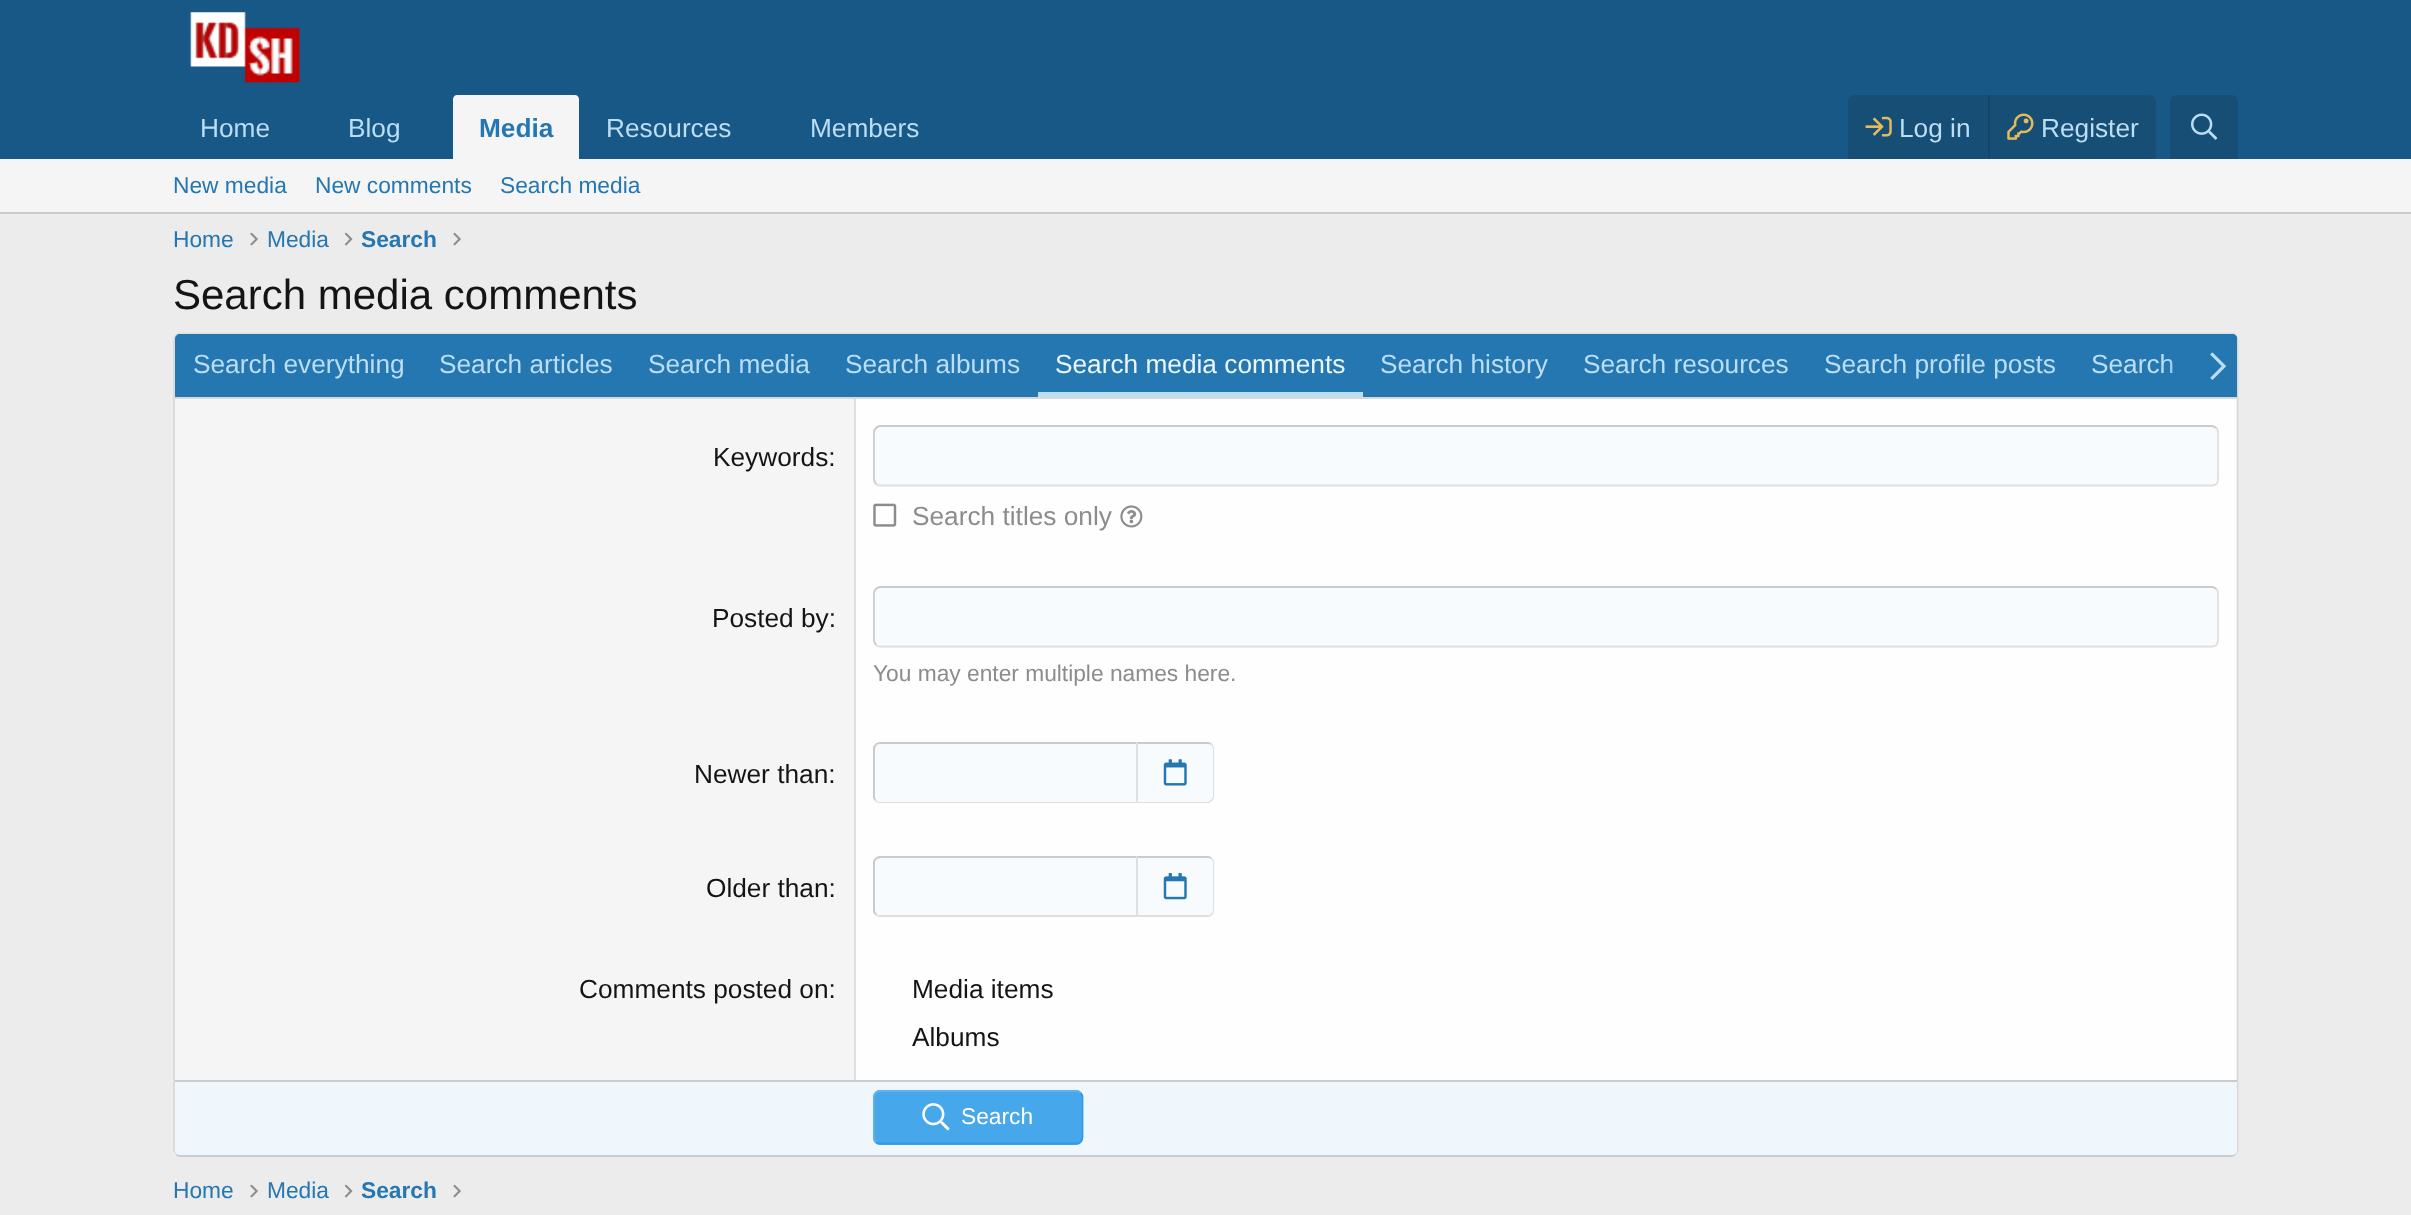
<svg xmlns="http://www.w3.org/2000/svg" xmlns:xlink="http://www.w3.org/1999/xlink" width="2411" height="1215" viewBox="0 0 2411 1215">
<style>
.cls-1{font:26.25px Liberation Sans;fill:#bcdef5}
.cls-2{font:bold 26.25px Liberation Sans;fill:#2577b1}
.cls-3{font:22.75px Liberation Sans;fill:#2577b1}
.cls-4{font:bold 22.75px Liberation Sans;fill:#2577b1}
.cls-5{font:42px Liberation Sans;fill:#141414}
.cls-6{font:26.25px Liberation Sans;fill:#edf6fd}
.cls-7{font:26.25px Liberation Sans;fill:#141414}
.cls-8{font:26.25px Liberation Sans;fill:#8c8c8c}
.cls-9{font:22.75px Liberation Sans;fill:#8c8c8c}
.cls-10{font:22.75px Liberation Sans;fill:#ffffff}
</style>
<defs>
<linearGradient id="g1" gradientUnits="userSpaceOnUse" x1="2167" y1="366" x2="2237" y2="366"><stop offset="0" stop-color="#2577b1" stop-opacity="0"/><stop offset="0.33" stop-color="#2577b1"/></linearGradient>
</defs>
<rect width="100%" height="100%" fill="#ececec"/>
<rect fill="#185886" x="0" y="0" width="2411" height="159"/>
<image xlink:href="image0.png" x="190" y="12" width="110" height="71"/>
<path fill="#f5f5f5" d="M457 95H575C577 95 579 97 579 99V159H453V99C453 97 455 95 457 95Z"/>
<path fill="#174e75" d="M1855 95H2149C2153 95 2156 98 2156 102V159H1848V102C1848 98 1851 95 1855 95Z"/>
<image xlink:href="image1.png" x="1865" y="116" width="27" height="21"/>
<rect fill="#174566" x="1988" y="95" width="2" height="64"/>
<image xlink:href="image2.png" x="2007" y="113" width="27" height="27"/>
<path fill="#174e75" d="M2177 95H2231C2235 95 2238 98 2238 102V159H2170V102C2170 98 2173 95 2177 95Z"/>
<image xlink:href="image3.png" x="2191" y="113" width="27" height="27"/>
<rect fill="#f5f5f5" x="0" y="159" width="2411" height="53"/>
<rect fill="#cbcbcb" x="0" y="212" width="2411" height="2"/>
<image xlink:href="image4.png" x="250" y="232" width="8" height="14"/>
<image xlink:href="image5.png" x="344" y="232" width="9" height="14"/>
<image xlink:href="image4.png" x="453" y="232" width="8" height="14"/>
<rect fill="#fefefe" x="173" y="333" width="2065" height="824" rx="7"/>
<path fill="none" stroke="#dfdfdf" stroke-width="1.8" d="M176 335C177 334 178.5 333.5 180 333.5H2231C2233 333.5 2234.5 334 2235.5 335"/>
<path fill="none" stroke="#d8d8d8" stroke-width="1.8" d="M2235.5 335C2236.5 336.5 2237.5 338 2237.5 339.5V1150C2237.5 1151.5 2236.5 1153 2235.5 1154"/>
<path fill="none" stroke="#cbcbcb" stroke-width="1.8" d="M2235.5 1154C2234.5 1155 2233 1156 2231 1156H180C178.5 1156 177 1155 176 1154"/>
<path fill="none" stroke="#d8d8d8" stroke-width="1.8" d="M176 1154C175 1153 174 1151.5 174 1150V339.5C174 338 175 336.5 176 335"/>
<path fill="#2577b1" d="M180 334H2232C2235 334 2237 336 2237 339V399H175V339C175 336 177 334 180 334Z"/>
<rect fill="#d8d8d8" x="175" y="397" width="2062" height="2"/>
<rect fill="#bcdef5" x="1038" y="392" width="325" height="5"/>
<rect fill="#f5f5f5" x="175" y="399" width="679" height="681"/>
<rect fill="#dfdfdf" x="854" y="399" width="2" height="681"/>
<rect fill="#f7fbfe" x="873" y="425" width="1346" height="62" rx="7"/>
<path fill="none" stroke="#dfdfdf" stroke-width="1.8" d="M2216.5 428C2217.5 429 2218 430.5 2218 432V479.5C2218 481 2217.5 482.5 2216.5 484C2215 485 2213.5 485.5 2212 485.5H880C878.5 485.5 877 485 876 484"/>
<path fill="none" stroke="#cbcbcb" stroke-width="1.8" d="M876 484C875 482.5 874 481 874 479.5V432C874 430.5 875 429 876 428C877 427 878.5 426 880 426H2212C2213.5 426 2215 427 2216.5 428"/>
<image xlink:href="image7.png" x="873" y="503" width="24" height="24"/>
<image xlink:href="image8.png" x="1120" y="505" width="23" height="23"/>
<rect fill="#f7fbfe" x="873" y="586" width="1346" height="62" rx="7"/>
<path fill="none" stroke="#dfdfdf" stroke-width="1.8" d="M2216.5 589C2217.5 590 2218 591.5 2218 593V640.5C2218 642 2217.5 643.5 2216.5 645C2215 646 2213.5 646.5 2212 646.5H880C878.5 646.5 877 646 876 645"/>
<path fill="none" stroke="#cbcbcb" stroke-width="1.8" d="M876 645C875 643.5 874 642 874 640.5V593C874 591.5 875 590 876 589C877 588 878.5 587 880 587H2212C2213.5 587 2215 588 2216.5 589"/>
<path fill="#f7fbfe" d="M880 742H1136V803H880C876 803 873 800 873 796V749C873 745 876 742 880 742Z"/>
<path fill="#cbcbcb" d="M880 742C878 742 876 743 875 744L877 745C877 744 879 744 880 744H1136V742Z"/>
<path fill="#dfdfdf" d="M1136 803H880C878 803 876 802 875 801L876 800C877 801 878 802 880 802H1136Z"/>
<path fill="#cbcbcb" d="M873 747L875 744L877 745C876 746 875 747 875 749V796C875 798 876 799 876 800L875 801L873 798Z"/>
<path fill="#f7fbfe" d="M1136 742H1208C1212 742 1215 745 1215 749V796C1215 800 1212 803 1208 803H1136Z"/>
<path fill="#cbcbcb" d="M1136 742L1138 744H1208C1209 744 1210 744 1211 745L1212 744C1211 743 1210 742 1208 742Z"/>
<path fill="#dfdfdf" d="M1212 744C1213 745 1214 747 1214 749V796C1214 798 1213 800 1212 801L1211 800C1212 799 1213 797 1213 796V749C1213 747 1212 746 1211 745Z"/>
<path fill="#dfdfdf" d="M1212 801L1209 803H1136L1138 801V802H1208L1211 800Z"/>
<path fill="#dfdfdf" d="M1136 742V803L1138 801V744Z"/>
<image xlink:href="image9.png" x="1163" y="759" width="24" height="27"/>
<path fill="#f7fbfe" d="M880 856H1136V917H880C876 917 873 914 873 910V863C873 859 876 856 880 856Z"/>
<path fill="#cbcbcb" d="M880 856H1136V858H880L877 859L875 858C876 857 878 856 880 856Z"/>
<path fill="#dfdfdf" d="M1136 917V915H880C879 915 877 915 877 914L875 915C876 916 878 917 880 917Z"/>
<path fill="#cbcbcb" d="M877 914L875 915L873 912V861L875 858L877 859C876 860 875 861 875 863V910C875 912 876 913 877 914Z"/>
<path fill="#f7fbfe" d="M1136 856H1208C1212 856 1215 859 1215 863V910C1215 914 1212 917 1208 917H1136Z"/>
<path fill="#cbcbcb" d="M1136 856L1138 858H1208C1209 858 1210 858 1211 859L1212 858C1211 857 1210 856 1208 856Z"/>
<path fill="#dfdfdf" d="M1212 858C1213 859 1214 861 1214 863V910C1214 912 1213 914 1212 915L1211 914C1212 913 1213 912 1213 910V863C1213 861 1212 860 1211 859Z"/>
<path fill="#dfdfdf" d="M1136 917H1209L1212 915L1211 914C1210 915 1209 915 1208 915H1138Z"/>
<path fill="#dfdfdf" d="M1138 858L1136 856V917L1138 915Z"/>
<image xlink:href="image10.png" x="1163" y="873" width="24" height="27"/>
<path fill="#edf6fd" fill-opacity="0.9" d="M175 1080H2237V1150C2237 1153 2235 1155 2232 1155H180C177 1155 175 1153 175 1150Z"/>
<rect fill="#cbcbcb" x="175" y="1080" width="2062" height="2"/>
<rect fill="#47a7eb" x="873" y="1090" width="210" height="55" rx="7"/>
<path fill="none" stroke="#309ce8" stroke-width="1.8" d="M1080.5 1093C1081.5 1094 1082.5 1095.5 1082.5 1097V1137.5C1082.5 1139 1081.5 1140.5 1080.5 1142C1079.5 1143 1078 1143.5 1076 1143.5H880C878.5 1143.5 877 1143 876 1142"/>
<path fill="none" stroke="#5eb2ed" stroke-width="1.8" d="M876 1142C875 1140.5 874 1139 874 1137.5V1097C874 1095.5 875 1094 876 1093C877 1092 878.5 1091 880 1091H1076C1078 1091 1079.5 1092 1080.5 1093"/>
<image xlink:href="image11.png" x="922" y="1103" width="28" height="28"/>
<image xlink:href="image4.png" x="250" y="1184" width="8" height="14"/>
<image xlink:href="image5.png" x="344" y="1184" width="9" height="14"/>
<image xlink:href="image4.png" x="453" y="1184" width="8" height="14"/>
<text class="cls-1" x="200" y="137">Home</text>
<text class="cls-1" x="348" y="137">Blog</text>
<text class="cls-2" x="479" y="137">Media</text>
<text class="cls-1" x="606" y="137">Resources</text>
<text class="cls-1" x="810" y="137">Members</text>
<text class="cls-1" x="1899" y="137">Log in</text>
<text class="cls-1" x="2041" y="137">Register</text>
<text class="cls-3" x="173" y="193">New media</text>
<text class="cls-3" x="315" y="193">New comments</text>
<text class="cls-3" x="500" y="193">Search media</text>
<text class="cls-3" x="173" y="247">Home</text>
<text class="cls-3" x="267" y="247">Media</text>
<text class="cls-4" x="361" y="247">Search</text>
<text class="cls-5" x="173" y="309">Search media comments</text>
<text class="cls-1" x="193" y="373">Search everything</text>
<text class="cls-1" x="439" y="373">Search articles</text>
<text class="cls-1" x="648" y="373">Search media</text>
<text class="cls-1" x="845" y="373">Search albums</text>
<text class="cls-6" x="1055" y="373">Search media comments</text>
<text class="cls-1" x="1380" y="373">Search history</text>
<text class="cls-1" x="1583" y="373">Search resources</text>
<text class="cls-1" x="1824" y="373">Search profile posts</text>
<text class="cls-1" x="2091" y="373">Search</text>
<path fill="url(#g1)" d="M2167 334H2232C2235 334 2237 336 2237 339V397H2167Z"/>
<image xlink:href="image6.png" x="2210" y="352" width="16" height="28"/>
<text class="cls-7" x="713" y="466">Keywords:</text>
<text class="cls-8" x="912" y="525">Search titles only</text>
<text class="cls-7" x="712" y="627">Posted by:</text>
<text class="cls-9" x="873" y="681">You may enter multiple names here.</text>
<text class="cls-7" x="694" y="783">Newer than:</text>
<text class="cls-7" x="706" y="897">Older than:</text>
<text class="cls-7" x="579" y="998">Comments posted on:</text>
<text class="cls-7"><tspan x="912" y="998">Media items</tspan><tspan x="912" y="1046">Albums</tspan></text>
<text class="cls-10" x="961" y="1124">Search</text>
<text class="cls-3" x="173" y="1198">Home</text>
<text class="cls-3" x="267" y="1198">Media</text>
<text class="cls-4" x="361" y="1198">Search</text>
</svg>
